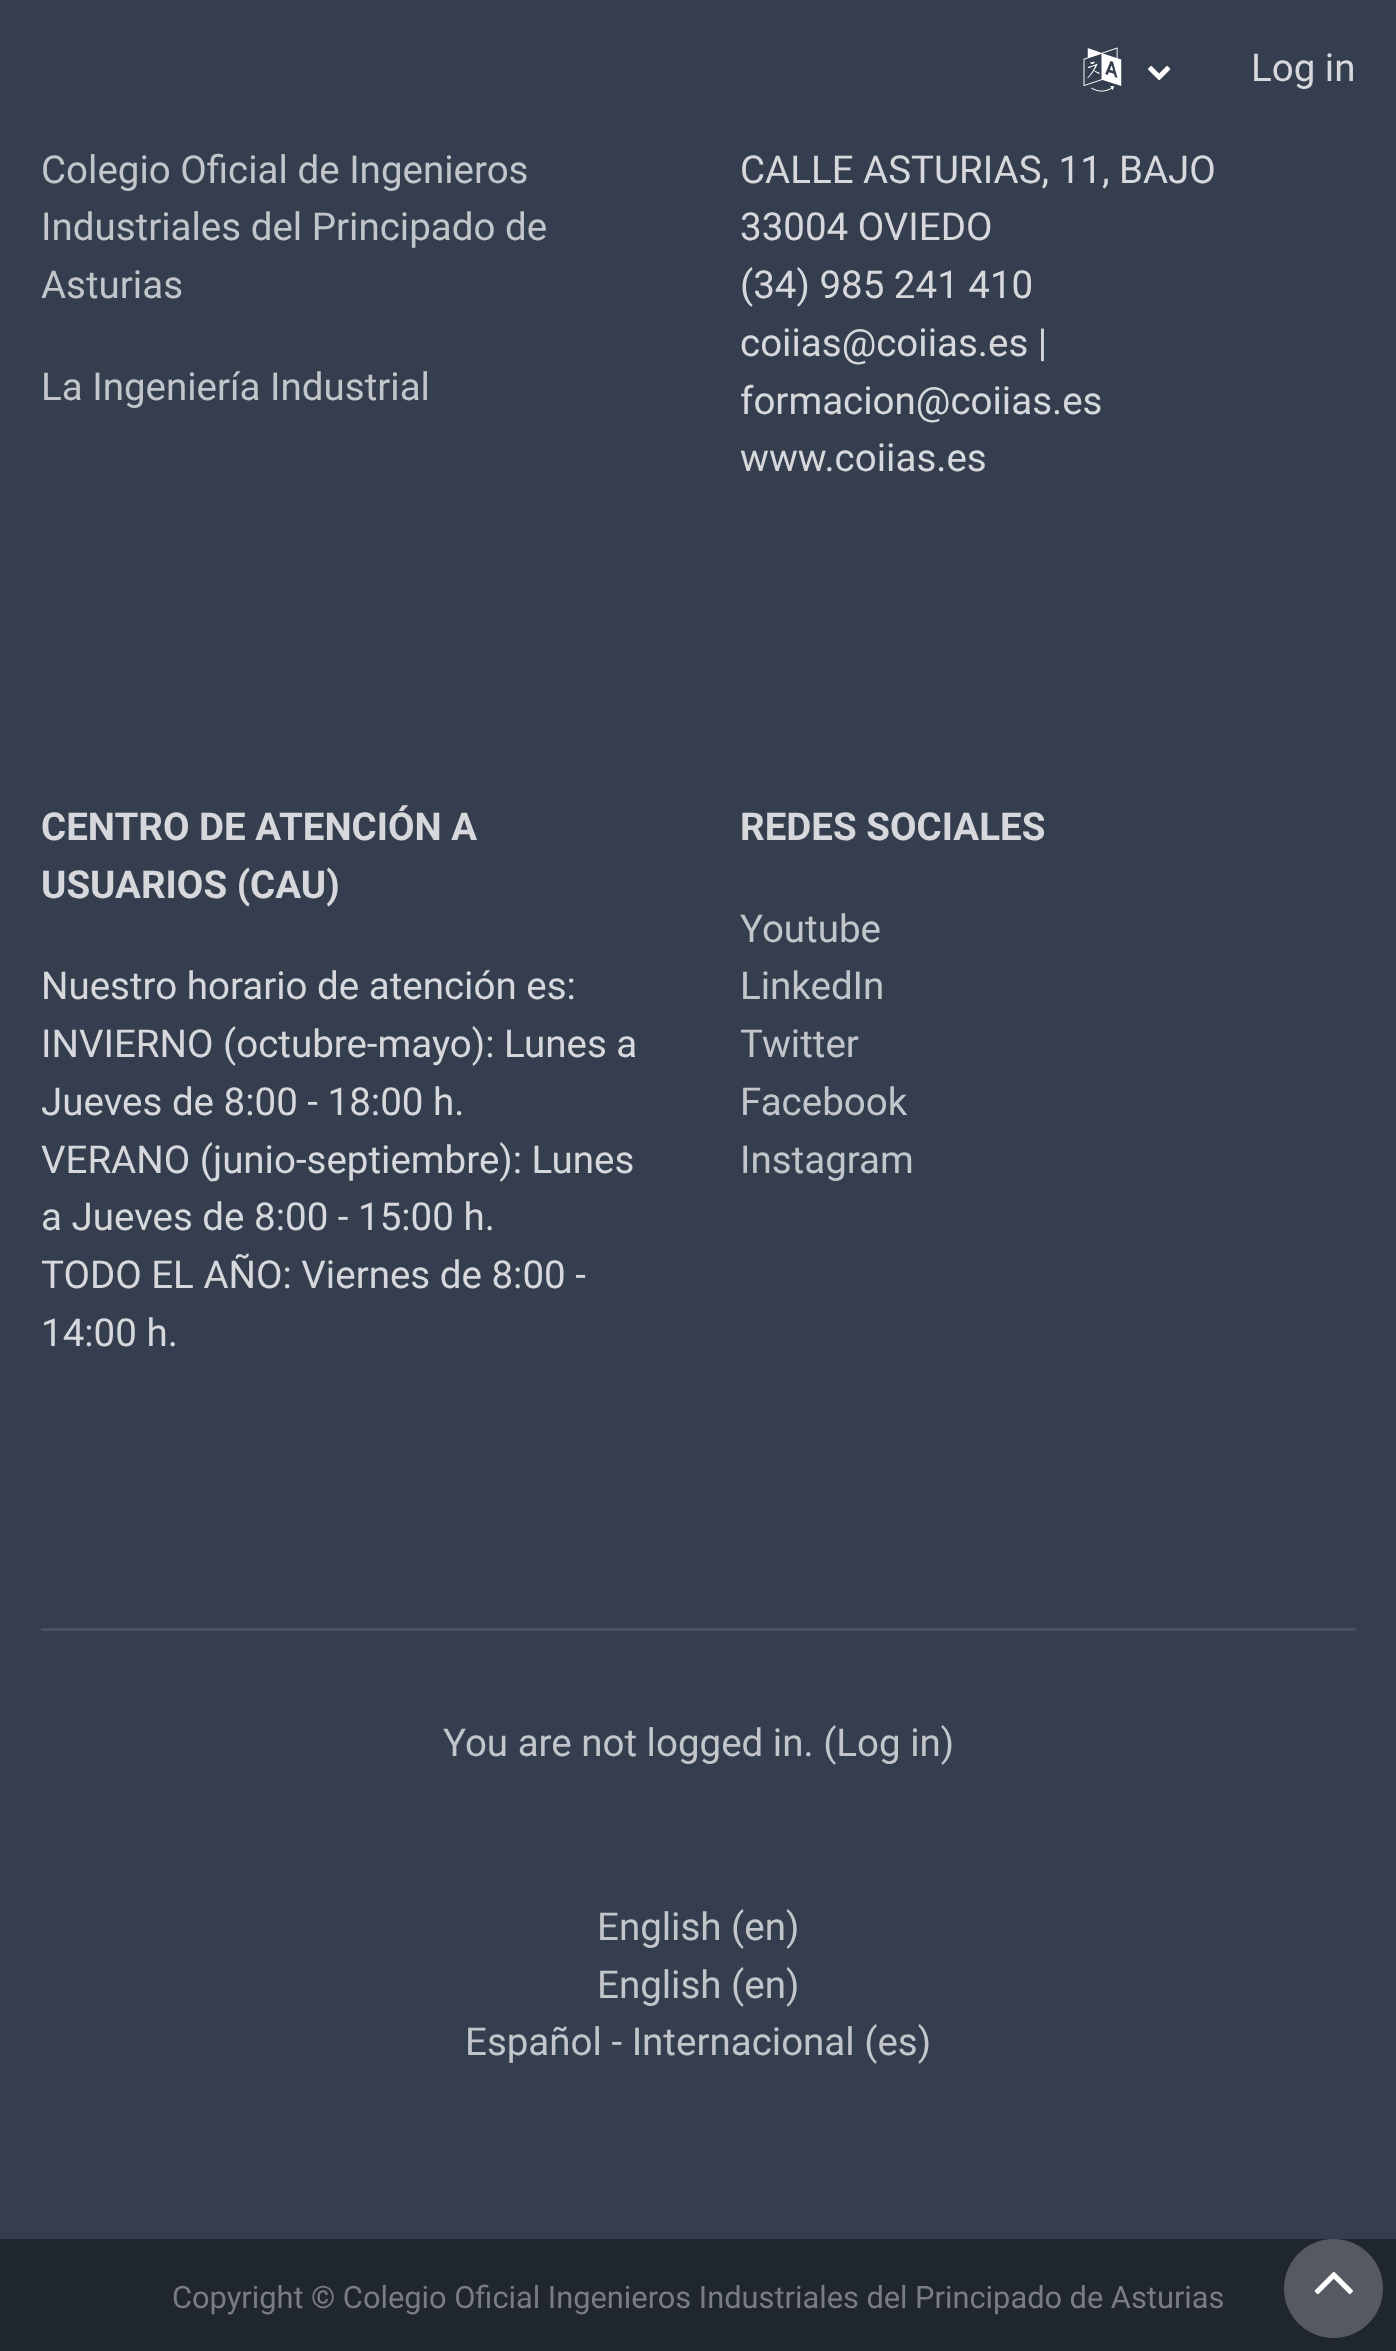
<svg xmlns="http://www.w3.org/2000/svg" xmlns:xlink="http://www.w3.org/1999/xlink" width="1396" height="2351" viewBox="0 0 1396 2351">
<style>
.cls-1{font:38.5px Roboto;fill:#d7d8dc}
.cls-2{font:38.5px Roboto;fill:#c2c5ca}
.cls-3{font:bold 38.5px Roboto;fill:#d7d8dc}
.cls-4{font:30.8px Roboto;fill:#797d83}
</style>
<rect width="100%" height="100%" fill="#353e4e"/>
<image xlink:href="image0.png" x="1083" y="47" width="39" height="45"/>
<image xlink:href="image1.png" x="1148" y="65" width="23" height="16"/>
<rect fill="#495160" x="41" y="1628" width="1315" height="3"/>
<rect fill="#202630" x="0" y="2239" width="1396" height="112"/>
<circle fill="#555961" cx="1333.5" cy="2288.5" r="49.5"/>
<image xlink:href="image2.png" x="1314" y="2271" width="39" height="24"/>
<text class="cls-1" x="1251" y="81">Log in</text>
<text class="cls-2"><tspan x="41" y="183">Colegio Oficial de Ingenieros</tspan><tspan x="41" y="240">Industriales del Principado de</tspan><tspan x="41" y="298">Asturias</tspan></text>
<text class="cls-2" x="41" y="400">La Ingeniería Industrial</text>
<text class="cls-1"><tspan x="740" y="183">CALLE ASTURIAS, 11, BAJO</tspan><tspan x="740" y="240">33004 OVIEDO</tspan><tspan x="740" y="298">(34) 985 241 410</tspan><tspan x="740" y="356">coiias@coiias.es |</tspan><tspan x="740" y="414">formacion@coiias.es</tspan><tspan x="740" y="471">www.coiias.es</tspan></text>
<text class="cls-3"><tspan x="41" y="840">CENTRO DE ATENCIÓN A</tspan><tspan x="41" y="898">USUARIOS (CAU)</tspan></text>
<text class="cls-1"><tspan x="41" y="999">Nuestro horario de atención es:</tspan><tspan x="41" y="1057">INVIERNO (octubre-mayo): Lunes a</tspan><tspan x="41" y="1115">Jueves de 8:00 - 18:00 h.</tspan><tspan x="41" y="1173">VERANO (junio-septiembre): Lunes</tspan><tspan x="41" y="1230">a Jueves de 8:00 - 15:00 h.</tspan><tspan x="41" y="1288">TODO EL AÑO: Viernes de 8:00 -</tspan><tspan x="41" y="1346">14:00 h.</tspan></text>
<text class="cls-3" x="740" y="840">REDES SOCIALES</text>
<text class="cls-2"><tspan x="740" y="942">Youtube</tspan><tspan x="740" y="999">LinkedIn</tspan><tspan x="740" y="1057">Twitter</tspan><tspan x="740" y="1115">Facebook</tspan><tspan x="740" y="1173">Instagram</tspan></text>
<text class="cls-2" x="443" y="1756">You are not logged in. (Log in)</text>
<text class="cls-2"><tspan x="597" y="1940">English (en)</tspan><tspan x="597" y="1998">English (en)</tspan></text>
<text class="cls-2" x="465" y="2055">Español - Internacional (es)</text>
<text class="cls-4" x="172" y="2308" word-spacing="-0.1">Copyright © Colegio Oficial Ingenieros Industriales del Principado de Asturias</text>
</svg>
